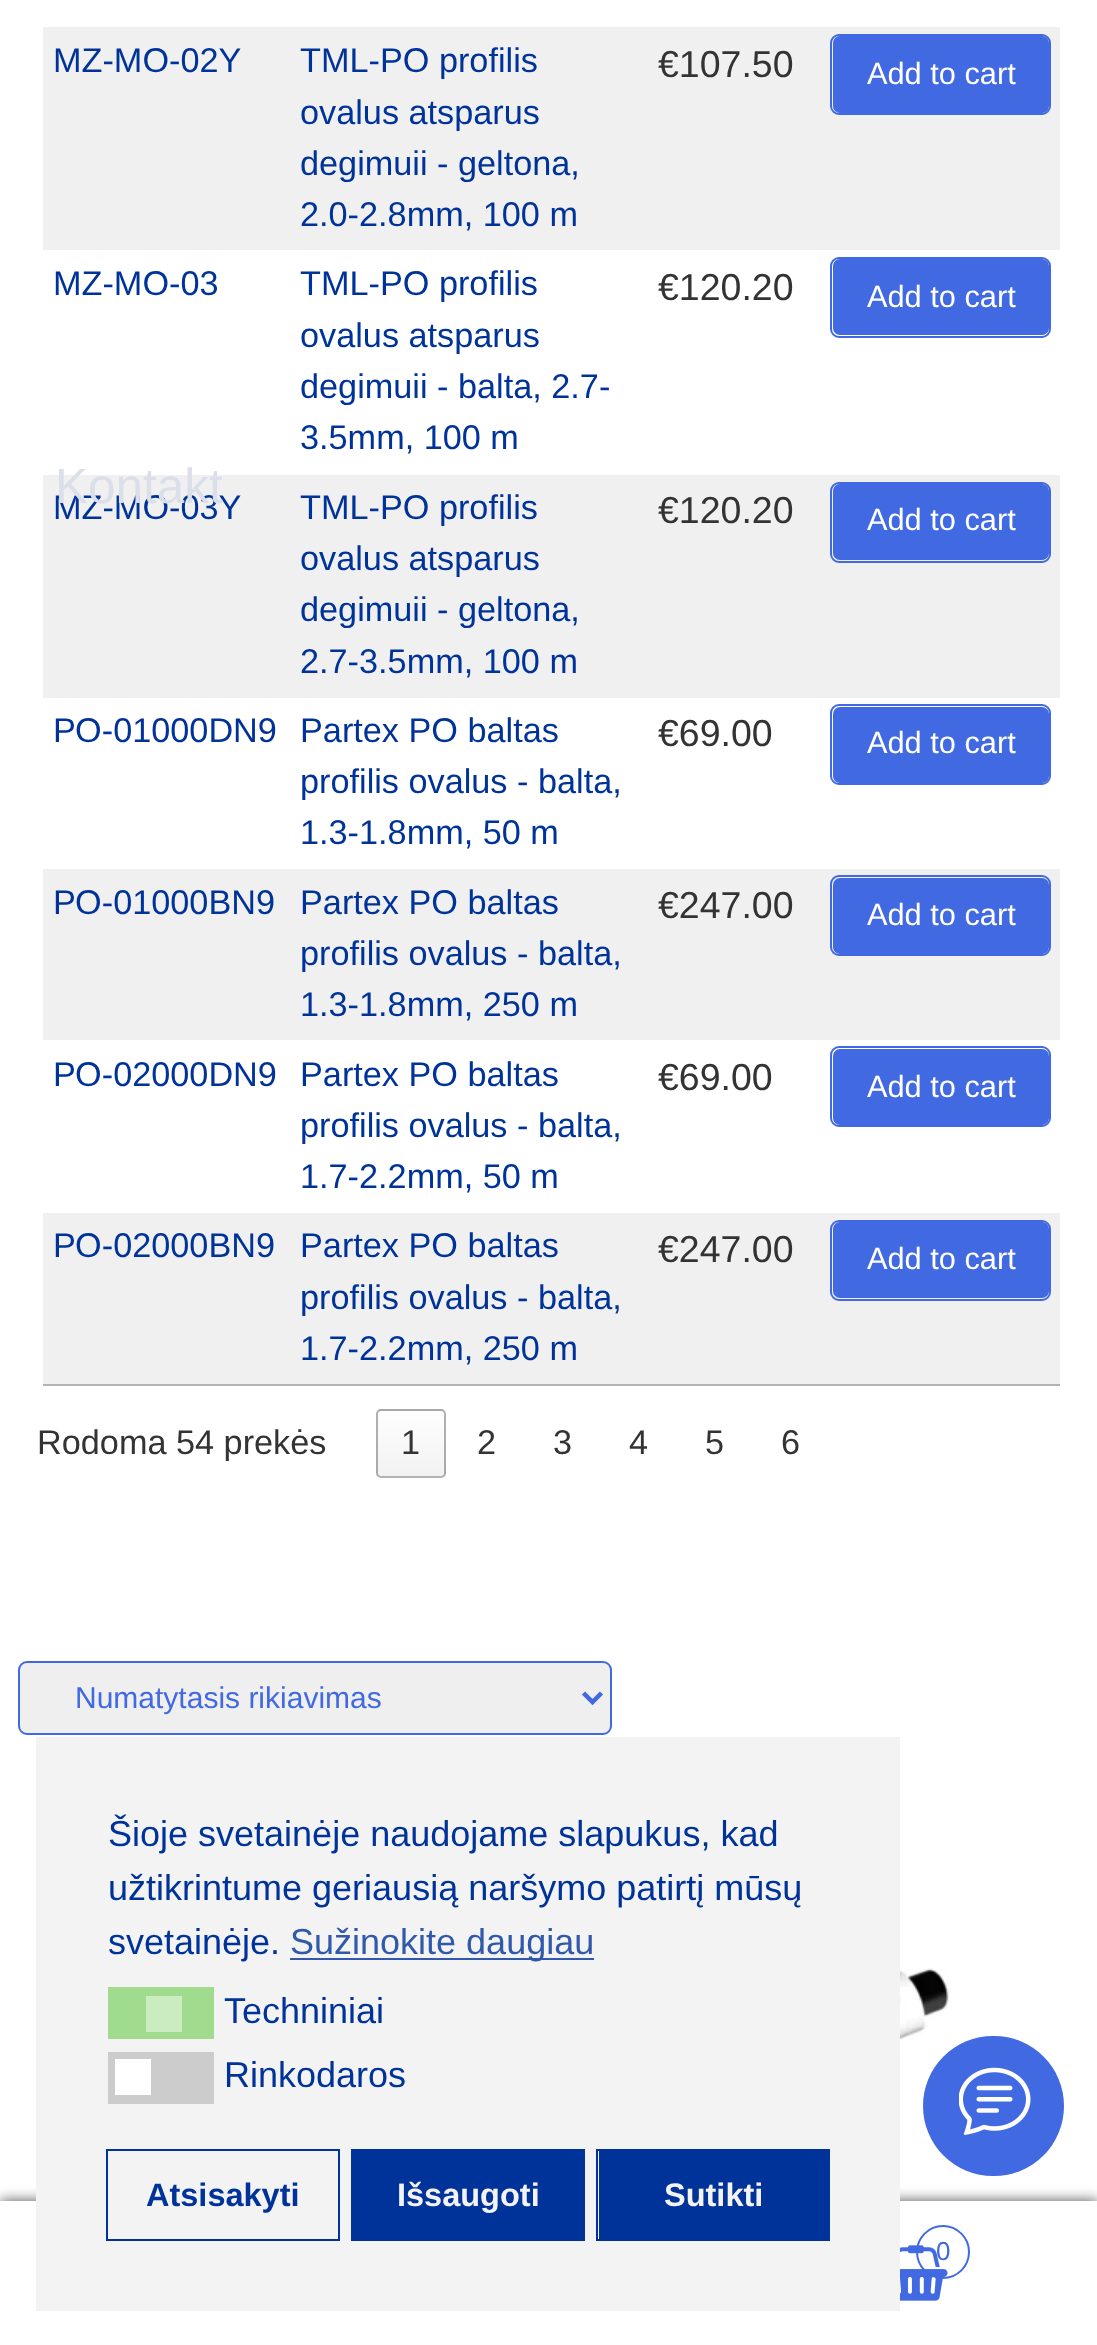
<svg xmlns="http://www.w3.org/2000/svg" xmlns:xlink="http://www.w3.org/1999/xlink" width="1097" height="2345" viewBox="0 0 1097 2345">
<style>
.cls-1{font:34.25px Liberation Sans;fill:#003399}
.cls-2{font:37.5px Liberation Sans;fill:#333333}
.cls-3{font:30.75px Liberation Sans;fill:#ffffff}
.cls-4{font:34.25px Liberation Sans;fill:#333333}
.cls-5{font:30px Liberation Sans;fill:#4169e1}
.cls-6{font:26px Liberation Sans;fill:#4169e1}
.cls-7{font:49.5px Liberation Sans;fill:#dadfe9}
.cls-8{font:36px Liberation Sans;fill:#003399}
.cls-9{font:36px Liberation Sans;fill:#3159ab}
.cls-10{font:bold 32.5px Liberation Sans;fill:#003399}
.cls-11{font:bold 32.5px Liberation Sans;fill:#f3f3f3}
</style>
<defs>
<clipPath id="clip1"><rect x="376" y="1409" width="70" height="69" rx="5"/></clipPath>
<linearGradient id="g1" gradientUnits="userSpaceOnUse" x1="411" y1="1346" x2="411" y2="1411"><stop offset="0" stop-color="#fefefe"/><stop offset="1" stop-color="#f2f2f2"/></linearGradient>
<linearGradient id="g2" gradientUnits="userSpaceOnUse" x1="411" y1="1411" x2="411" y2="1476"><stop offset="0" stop-color="#fefefe"/><stop offset="1" stop-color="#f2f2f2"/></linearGradient>
<radialGradient id="g3" gradientUnits="userSpaceOnUse" cx="0" cy="0" r="1" gradientTransform="matrix(751 0 0 915 551 2458)"><stop offset="0" stop-color="#f6f6f6"/><stop offset="0.33" stop-color="#f9f9f9"/><stop offset="0.67" stop-color="#fefefe"/><stop offset="1" stop-color="#ffffff"/></radialGradient>
</defs>
<rect width="100%" height="100%" fill="#ffffff"/>
<rect fill="#b3b3b3" x="43" y="1384" width="1017" height="2"/>
<rect fill="#f0f0f0" x="43" y="27" width="1017" height="223"/>
<rect fill="#4169e1" x="833" y="36" width="216" height="77" rx="7"/>
<rect fill="none" stroke="#4169e1" stroke-width="2" x="831" y="35" width="219" height="79" rx="8"/>
<rect fill="#4169e1" x="833" y="259" width="216" height="76" rx="7"/>
<rect fill="none" stroke="#4169e1" stroke-width="2" x="831" y="258" width="219" height="79" rx="8"/>
<rect fill="#f0f0f0" x="43" y="475" width="1017" height="223"/>
<rect fill="#4169e1" x="833" y="484" width="216" height="76" rx="7"/>
<rect fill="none" stroke="#4169e1" stroke-width="2" x="831" y="483" width="219" height="79" rx="8"/>
<rect fill="#4169e1" x="833" y="707" width="216" height="76" rx="7"/>
<rect fill="none" stroke="#4169e1" stroke-width="2" x="831" y="705" width="219" height="79" rx="8"/>
<rect fill="#f0f0f0" x="43" y="869" width="1017" height="171"/>
<rect fill="#4169e1" x="833" y="878" width="216" height="76" rx="7"/>
<rect fill="none" stroke="#4169e1" stroke-width="2" x="831" y="876" width="219" height="79" rx="8"/>
<rect fill="#4169e1" x="833" y="1049" width="216" height="76" rx="7"/>
<rect fill="none" stroke="#4169e1" stroke-width="2" x="831" y="1047" width="219" height="79" rx="8"/>
<rect fill="#f0f0f0" x="43" y="1213" width="1017" height="171"/>
<rect fill="#4169e1" x="833" y="1222" width="216" height="76" rx="7"/>
<rect fill="none" stroke="#4169e1" stroke-width="2" x="831" y="1221" width="219" height="79" rx="8"/>
<g clip-path="url(#clip1)">
<rect fill="url(#g1)" x="376" y="1409" width="70" height="2"/>
<rect fill="url(#g2)" x="376" y="1411" width="70" height="65"/>
</g>
<rect fill="none" stroke="#000000" stroke-opacity="0.3" stroke-width="2" x="377" y="1410" width="68" height="67" rx="4"/>
<rect fill="#efefef" x="20" y="1663" width="590" height="70" rx="7"/>
<path fill="none" stroke="#4169e1" stroke-width="4.5" d="M583.5 1693L592.5 1702L601.5 1693"/>
<rect fill="none" stroke="#4169e1" stroke-width="2" x="19" y="1662" width="592" height="72" rx="8"/>
<rect fill="url(#g3)" x="179" y="1939" width="744" height="262"/>
<rect fill="#ffffff" x="23" y="1814" width="506" height="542" rx="11"/>
<rect fill="#ffffff" x="545" y="1814" width="504" height="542" rx="11"/>
<image xlink:href="image0.png" x="900" y="1968" width="49" height="144"/>
<rect fill="#000000" fill-opacity="0.7" filter="blur(7px)" x="0" y="2201" width="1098" height="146"/>
<rect fill="#ffffff" x="0" y="2201" width="1097" height="144"/>
<image xlink:href="image1.png" x="900" y="2245" width="48" height="56"/>
<circle fill="none" stroke="#4169e1" stroke-width="2" cx="943" cy="2252" r="26"/>
<rect fill="#f3f3f3" x="36" y="1737" width="864" height="574"/>
<rect fill="#3159ab" x="290" y="1958" width="304" height="2"/>
<rect fill="#a0db8e" x="108" y="1987" width="106" height="52"/>
<rect fill="#cbebc1" x="146" y="1996" width="36" height="36"/>
<rect fill="#cccccc" x="108" y="2052" width="106" height="52"/>
<rect fill="#ffffff" x="115" y="2059" width="36" height="36"/>
<rect fill="none" stroke="#003399" stroke-width="2" x="107" y="2150" width="232" height="90"/>
<rect fill="#003399" x="353" y="2151" width="230" height="88"/>
<rect fill="none" stroke="#003399" stroke-width="2" x="352" y="2150" width="232" height="90"/>
<rect fill="#003399" x="599" y="2151" width="229" height="88"/>
<rect fill="none" stroke="#003399" stroke-width="2" x="597" y="2150" width="232" height="90"/>
<rect fill="#4169e1" x="923" y="2036" width="141" height="140" rx="70"/>
<image xlink:href="image2.png" x="959" y="2067" width="72" height="68"/>
<text class="cls-1" x="53" y="72">MZ-MO-02Y</text>
<text class="cls-1"><tspan x="300" y="72">TML-PO profilis</tspan><tspan x="300" y="124">ovalus atsparus</tspan><tspan x="300" y="175">degimuii - geltona,</tspan><tspan x="300" y="226">2.0-2.8mm, 100 m</tspan></text>
<text class="cls-2" x="658" y="77">€107.50</text>
<text class="cls-3" x="867" y="84">Add to cart</text>
<text class="cls-1" x="53" y="295">MZ-MO-03</text>
<text class="cls-1"><tspan x="300" y="295">TML-PO profilis</tspan><tspan x="300" y="347">ovalus atsparus</tspan><tspan x="300" y="398">degimuii - balta, 2.7-</tspan><tspan x="300" y="449">3.5mm, 100 m</tspan></text>
<text class="cls-2" x="658" y="300">€120.20</text>
<text class="cls-3" x="867" y="307">Add to cart</text>
<text class="cls-1" x="53" y="519">MZ-MO-03Y</text>
<text class="cls-1"><tspan x="300" y="519">TML-PO profilis</tspan><tspan x="300" y="570">ovalus atsparus</tspan><tspan x="300" y="621">degimuii - geltona,</tspan><tspan x="300" y="673">2.7-3.5mm, 100 m</tspan></text>
<text class="cls-2" x="658" y="523">€120.20</text>
<text class="cls-3" x="867" y="530">Add to cart</text>
<text class="cls-1" x="53" y="742">РО-01000DN9</text>
<text class="cls-1"><tspan x="300" y="742">Partex PO baltas</tspan><tspan x="300" y="793">profilis ovalus - balta,</tspan><tspan x="300" y="844">1.3-1.8mm, 50 m</tspan></text>
<text class="cls-2" x="658" y="746">€69.00</text>
<text class="cls-3" x="867" y="753">Add to cart</text>
<text class="cls-1" x="53" y="914">РО-01000BN9</text>
<text class="cls-1"><tspan x="300" y="914">Partex PO baltas</tspan><tspan x="300" y="965">profilis ovalus - balta,</tspan><tspan x="300" y="1016">1.3-1.8mm, 250 m</tspan></text>
<text class="cls-2" x="658" y="918">€247.00</text>
<text class="cls-3" x="867" y="925">Add to cart</text>
<text class="cls-1" x="53" y="1086">РО-02000DN9</text>
<text class="cls-1"><tspan x="300" y="1086">Partex PO baltas</tspan><tspan x="300" y="1137">profilis ovalus - balta,</tspan><tspan x="300" y="1188">1.7-2.2mm, 50 m</tspan></text>
<text class="cls-2" x="658" y="1090">€69.00</text>
<text class="cls-3" x="867" y="1097">Add to cart</text>
<text class="cls-1" x="53" y="1257">РО-02000BN9</text>
<text class="cls-1"><tspan x="300" y="1257">Partex PO baltas</tspan><tspan x="300" y="1309">profilis ovalus - balta,</tspan><tspan x="300" y="1360">1.7-2.2mm, 250 m</tspan></text>
<text class="cls-2" x="658" y="1262">€247.00</text>
<text class="cls-3" x="867" y="1269">Add to cart</text>
<text class="cls-4" x="37" y="1454">Rodoma 54 prekės</text>
<text class="cls-4" x="401" y="1454">1</text>
<text class="cls-4" x="477" y="1454">2</text>
<text class="cls-4" x="553" y="1454">3</text>
<text class="cls-4" x="629" y="1454">4</text>
<text class="cls-4" x="705" y="1454">5</text>
<text class="cls-4" x="781" y="1454">6</text>
<text class="cls-5" x="75" y="1708">Numatytasis rikiavimas</text>
<text class="cls-6" x="936" y="2260">0</text>
<text class="cls-7" x="55" y="503">Kontakt</text>
<text class="cls-8"><tspan x="108" y="1846">Šioje svetainėje naudojame slapukus, kad</tspan><tspan x="108" y="1900">užtikrintume geriausią naršymo patirtį mūsų</tspan><tspan x="108" y="1954">svetainėje.</tspan></text>
<text class="cls-9" x="290" y="1954">Sužinokite daugiau</text>
<text class="cls-8"><tspan x="224" y="2023">Techniniai</tspan><tspan x="224" y="2087">Rinkodaros</tspan></text>
<text class="cls-10" x="146" y="2206">Atsisakyti</text>
<text class="cls-11" x="397" y="2206">Išsaugoti</text>
<text class="cls-11" x="664" y="2206">Sutikti</text>
</svg>
